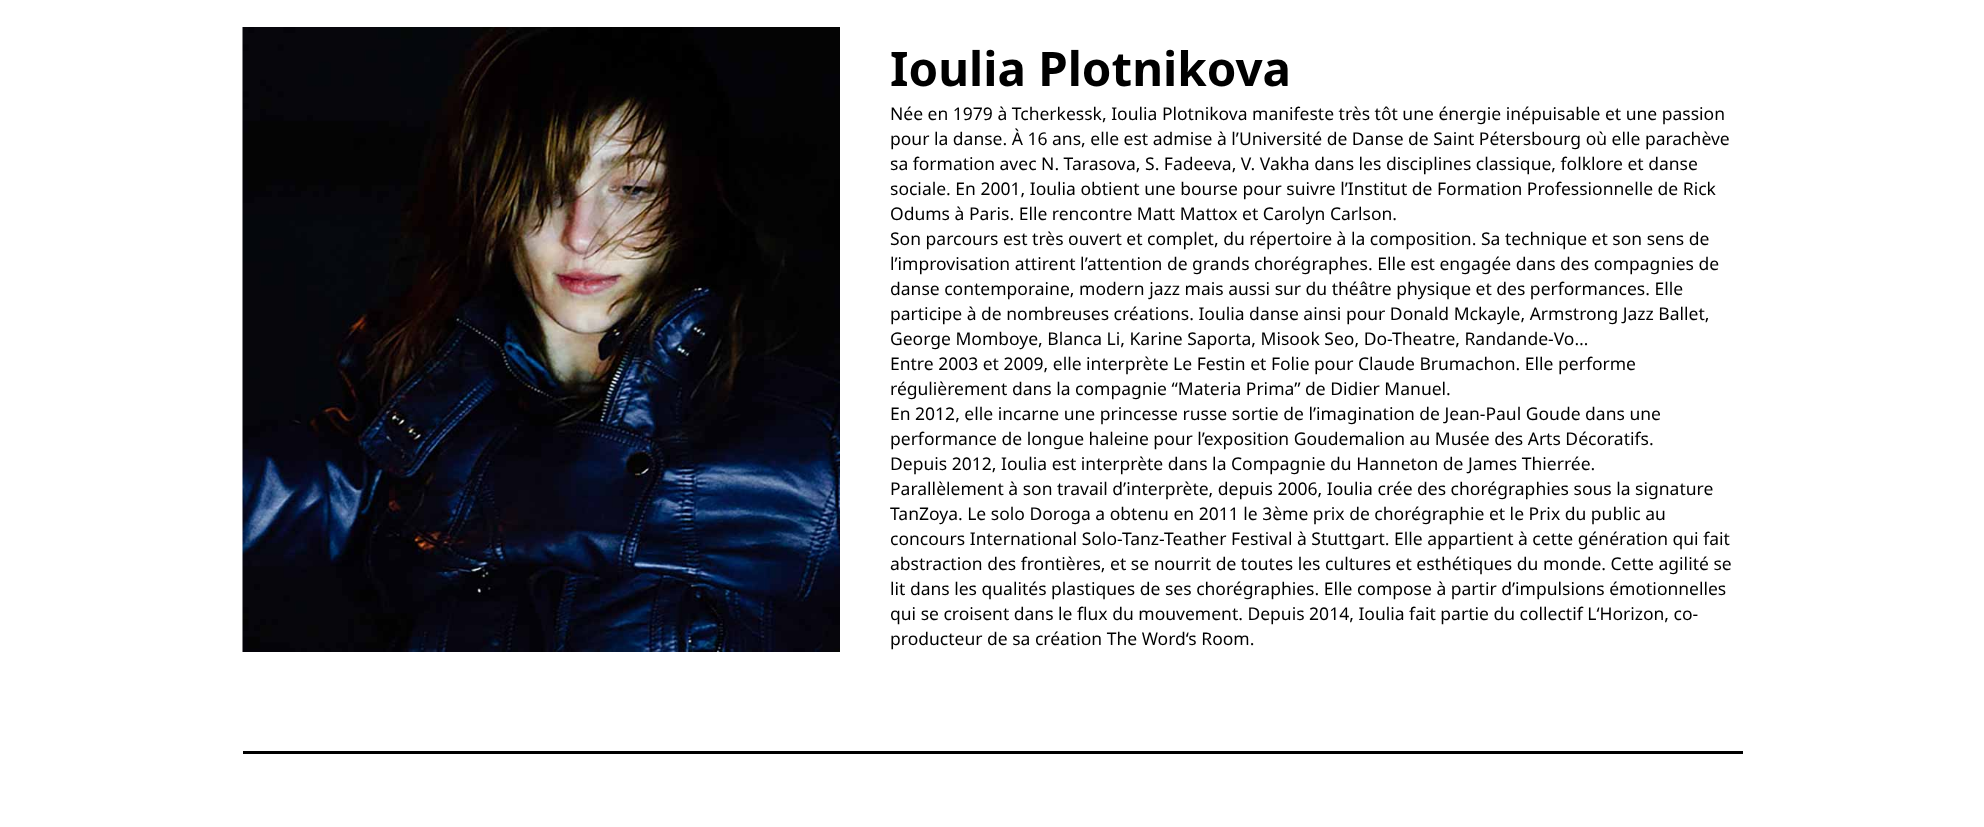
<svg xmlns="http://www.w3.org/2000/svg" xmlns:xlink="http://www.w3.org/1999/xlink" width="1984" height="827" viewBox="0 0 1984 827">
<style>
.cls-1{font:bold 47.5px Noto Sans;fill:#000000}
.cls-2{font:17.5px Noto Sans;fill:#000000}
</style>
<rect width="100%" height="100%" fill="#ffffff"/>
<image xlink:href="image0.png" x="242" y="27" width="598" height="625"/>
<rect fill="#000000" x="243" y="751" width="1500" height="3"/>
<text class="cls-1" x="890" y="86">Ioulia Plotnikova</text>
<text class="cls-2"><tspan x="890" y="120">Née en 1979 à Tcherkessk, Ioulia Plotnikova manifeste très tôt une énergie inépuisable et une passion</tspan><tspan x="890" y="145">pour la danse. À 16 ans, elle est admise à l’Université de Danse de Saint Pétersbourg où elle parachève</tspan><tspan x="890" y="170">sa formation avec N. Tarasova, S. Fadeeva, V. Vakha dans les disciplines classique, folklore et danse</tspan><tspan x="890" y="195">sociale. En 2001, Ioulia obtient une bourse pour suivre l’Institut de Formation Professionnelle de Rick</tspan><tspan x="890" y="220">Odums à Paris. Elle rencontre Matt Mattox et Carolyn Carlson.</tspan><tspan x="890" y="245">Son parcours est très ouvert et complet, du répertoire à la composition. Sa technique et son sens de</tspan><tspan x="890" y="270">l’improvisation attirent l’attention de grands chorégraphes. Elle est engagée dans des compagnies de</tspan><tspan x="890" y="295">danse contemporaine, modern jazz mais aussi sur du théâtre physique et des performances. Elle</tspan><tspan x="890" y="320">participe à de nombreuses créations. Ioulia danse ainsi pour Donald Mckayle, Armstrong Jazz Ballet,</tspan><tspan x="890" y="345">George Momboye, Blanca Li, Karine Saporta, Misook Seo, Do-Theatre, Randande-Vo…</tspan><tspan x="890" y="370">Entre 2003 et 2009, elle interprète Le Festin et Folie pour Claude Brumachon. Elle performe</tspan><tspan x="890" y="395">régulièrement dans la compagnie “Materia Prima” de Didier Manuel.</tspan><tspan x="890" y="420">En 2012, elle incarne une princesse russe sortie de l’imagination de Jean-Paul Goude dans une</tspan><tspan x="890" y="445">performance de longue haleine pour l’exposition Goudemalion au Musée des Arts Décoratifs.</tspan><tspan x="890" y="470">Depuis 2012, Ioulia est interprète dans la Compagnie du Hanneton de James Thierrée.</tspan><tspan x="890" y="495">Parallèlement à son travail d’interprète, depuis 2006, Ioulia crée des chorégraphies sous la signature</tspan><tspan x="890" y="520">TanZoya. Le solo Doroga a obtenu en 2011 le 3ème prix de chorégraphie et le Prix du public au</tspan><tspan x="890" y="545">concours International Solo-Tanz-Teather Festival à Stuttgart. Elle appartient à cette génération qui fait</tspan><tspan x="890" y="570">abstraction des frontières, et se nourrit de toutes les cultures et esthétiques du monde. Cette agilité se</tspan><tspan x="890" y="595">lit dans les qualités plastiques de ses chorégraphies. Elle compose à partir d’impulsions émotionnelles</tspan><tspan x="890" y="620">qui se croisent dans le flux du mouvement. Depuis 2014, Ioulia fait partie du collectif L‘Horizon, co-</tspan><tspan x="890" y="645">producteur de sa création The Word‘s Room.</tspan></text>
</svg>
